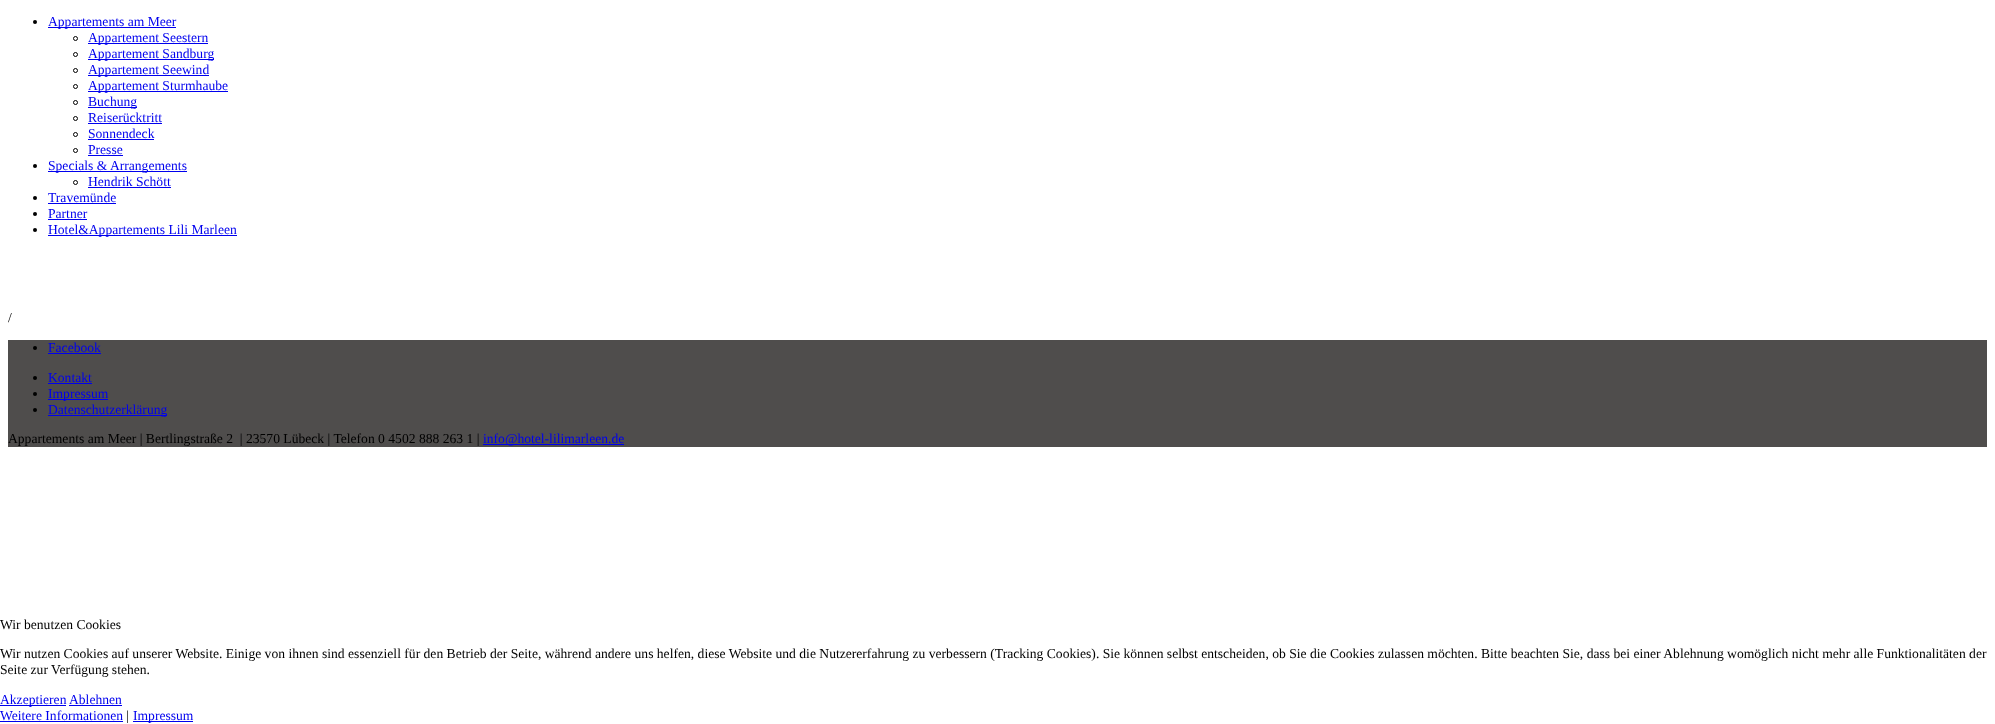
<svg xmlns="http://www.w3.org/2000/svg" xmlns:xlink="http://www.w3.org/1999/xlink" width="1995" height="724" viewBox="0 0 1995 724">
<style>
.cls-1{font:13.6px Liberation Serif;fill:#0000ee}
.cls-2{font:13.6px Liberation Serif;fill:#000000}
</style>
<rect width="100%" height="100%" fill="#ffffff"/>
<circle fill="#000000" cx="35" cy="22" r="2"/>
<rect fill="#0000ee" x="48" y="27" width="128" height="1"/>
<circle fill="none" stroke="#000000" cx="75.5" cy="38.5" r="2"/>
<rect fill="#0000ee" x="88" y="43" width="120" height="1"/>
<circle fill="none" stroke="#000000" cx="75.5" cy="54.5" r="2"/>
<rect fill="#0000ee" x="88" y="59" width="126" height="1"/>
<circle fill="none" stroke="#000000" cx="75.5" cy="70.5" r="2"/>
<rect fill="#0000ee" x="88" y="75" width="121" height="1"/>
<circle fill="none" stroke="#000000" cx="75.5" cy="86.5" r="2"/>
<rect fill="#0000ee" x="88" y="91" width="140" height="1"/>
<circle fill="none" stroke="#000000" cx="75.5" cy="102.5" r="2"/>
<rect fill="#0000ee" x="88" y="107" width="49" height="1"/>
<circle fill="none" stroke="#000000" cx="75.5" cy="118.5" r="2"/>
<rect fill="#0000ee" x="88" y="123" width="74" height="1"/>
<circle fill="none" stroke="#000000" cx="75.5" cy="134.5" r="2"/>
<rect fill="#0000ee" x="88" y="139" width="66" height="1"/>
<circle fill="none" stroke="#000000" cx="75.5" cy="150.5" r="2"/>
<rect fill="#0000ee" x="88" y="155" width="35" height="1"/>
<circle fill="#000000" cx="35" cy="166" r="2"/>
<rect fill="#0000ee" x="48" y="171" width="139" height="1"/>
<circle fill="none" stroke="#000000" cx="75.5" cy="182.5" r="2"/>
<rect fill="#0000ee" x="88" y="187" width="83" height="1"/>
<circle fill="#000000" cx="35" cy="198" r="2"/>
<rect fill="#0000ee" x="48" y="203" width="68" height="1"/>
<circle fill="#000000" cx="35" cy="214" r="2"/>
<rect fill="#0000ee" x="48" y="219" width="39" height="1"/>
<circle fill="#000000" cx="35" cy="230" r="2"/>
<rect fill="#0000ee" x="48" y="235" width="189" height="1"/>
<rect fill="#4f4d4c" x="8" y="340" width="1979" height="107"/>
<circle fill="#000000" cx="35" cy="348" r="2"/>
<rect fill="#0000ee" x="48" y="353" width="53" height="1"/>
<circle fill="#000000" cx="35" cy="378" r="2"/>
<rect fill="#0000ee" x="48" y="383" width="44" height="1"/>
<circle fill="#000000" cx="35" cy="394" r="2"/>
<rect fill="#0000ee" x="48" y="399" width="60" height="1"/>
<circle fill="#000000" cx="35" cy="410" r="2"/>
<rect fill="#0000ee" x="48" y="415" width="119" height="1"/>
<rect fill="#0000ee" x="483" y="444" width="141" height="1"/>
<rect fill="#0000ee" x="0" y="705" width="66" height="1"/>
<rect fill="#0000ee" x="69" y="705" width="53" height="1"/>
<rect fill="#0000ee" x="0" y="721" width="123" height="1"/>
<rect fill="#0000ee" x="133" y="721" width="60" height="1"/>
<text class="cls-1" x="48" y="26">Appartements am Meer</text>
<text class="cls-1"><tspan x="88" y="42">Appartement Seestern</tspan><tspan x="88" y="58">Appartement Sandburg</tspan><tspan x="88" y="74">Appartement Seewind</tspan><tspan x="88" y="90">Appartement Sturmhaube</tspan><tspan x="88" y="106">Buchung</tspan><tspan x="88" y="122">Reiserücktritt</tspan><tspan x="88" y="138">Sonnendeck</tspan><tspan x="88" y="154">Presse</tspan></text>
<text class="cls-1" x="48" y="170">Specials &amp; Arrangements</text>
<text class="cls-1" x="88" y="186">Hendrik Schött</text>
<text class="cls-1"><tspan x="48" y="202">Travemünde</tspan><tspan x="48" y="218">Partner</tspan><tspan x="48" y="234">Hotel&amp;Appartements Lili Marleen</tspan></text>
<text class="cls-2" x="8" y="322">/</text>
<text class="cls-1" x="48" y="352">Facebook</text>
<text class="cls-1"><tspan x="48" y="382">Kontakt</tspan><tspan x="48" y="398">Impressum</tspan><tspan x="48" y="414">Datenschutzerklärung</tspan></text>
<text class="cls-2" xml:space="preserve" x="8" y="443">Appartements am Meer | Bertlingstraße 2  | 23570 Lübeck | Telefon 0 4502 888 263 1 |</text>
<text class="cls-1" x="483" y="443">info@hotel-lilimarleen.de</text>
<text class="cls-2" x="0" y="629">Wir benutzen Cookies</text>
<text class="cls-2"><tspan x="0" y="658">Wir nutzen Cookies auf unserer Website. Einige von ihnen sind essenziell für den Betrieb der Seite, während andere uns helfen, diese Website und die Nutzererfahrung zu verbessern (Tracking Cookies). Sie können selbst entscheiden, ob Sie die Cookies zulassen möchten. Bitte beachten Sie, dass bei einer Ablehnung womöglich nicht mehr alle Funktionalitäten der</tspan><tspan x="0" y="674">Seite zur Verfügung stehen.</tspan></text>
<text class="cls-1" x="0" y="704">Akzeptieren</text>
<text class="cls-1" x="69" y="704">Ablehnen</text>
<text class="cls-1" x="0" y="720">Weitere Informationen</text>
<text class="cls-2" x="126" y="720">|</text>
<text class="cls-1" x="133" y="720">Impressum</text>
</svg>
